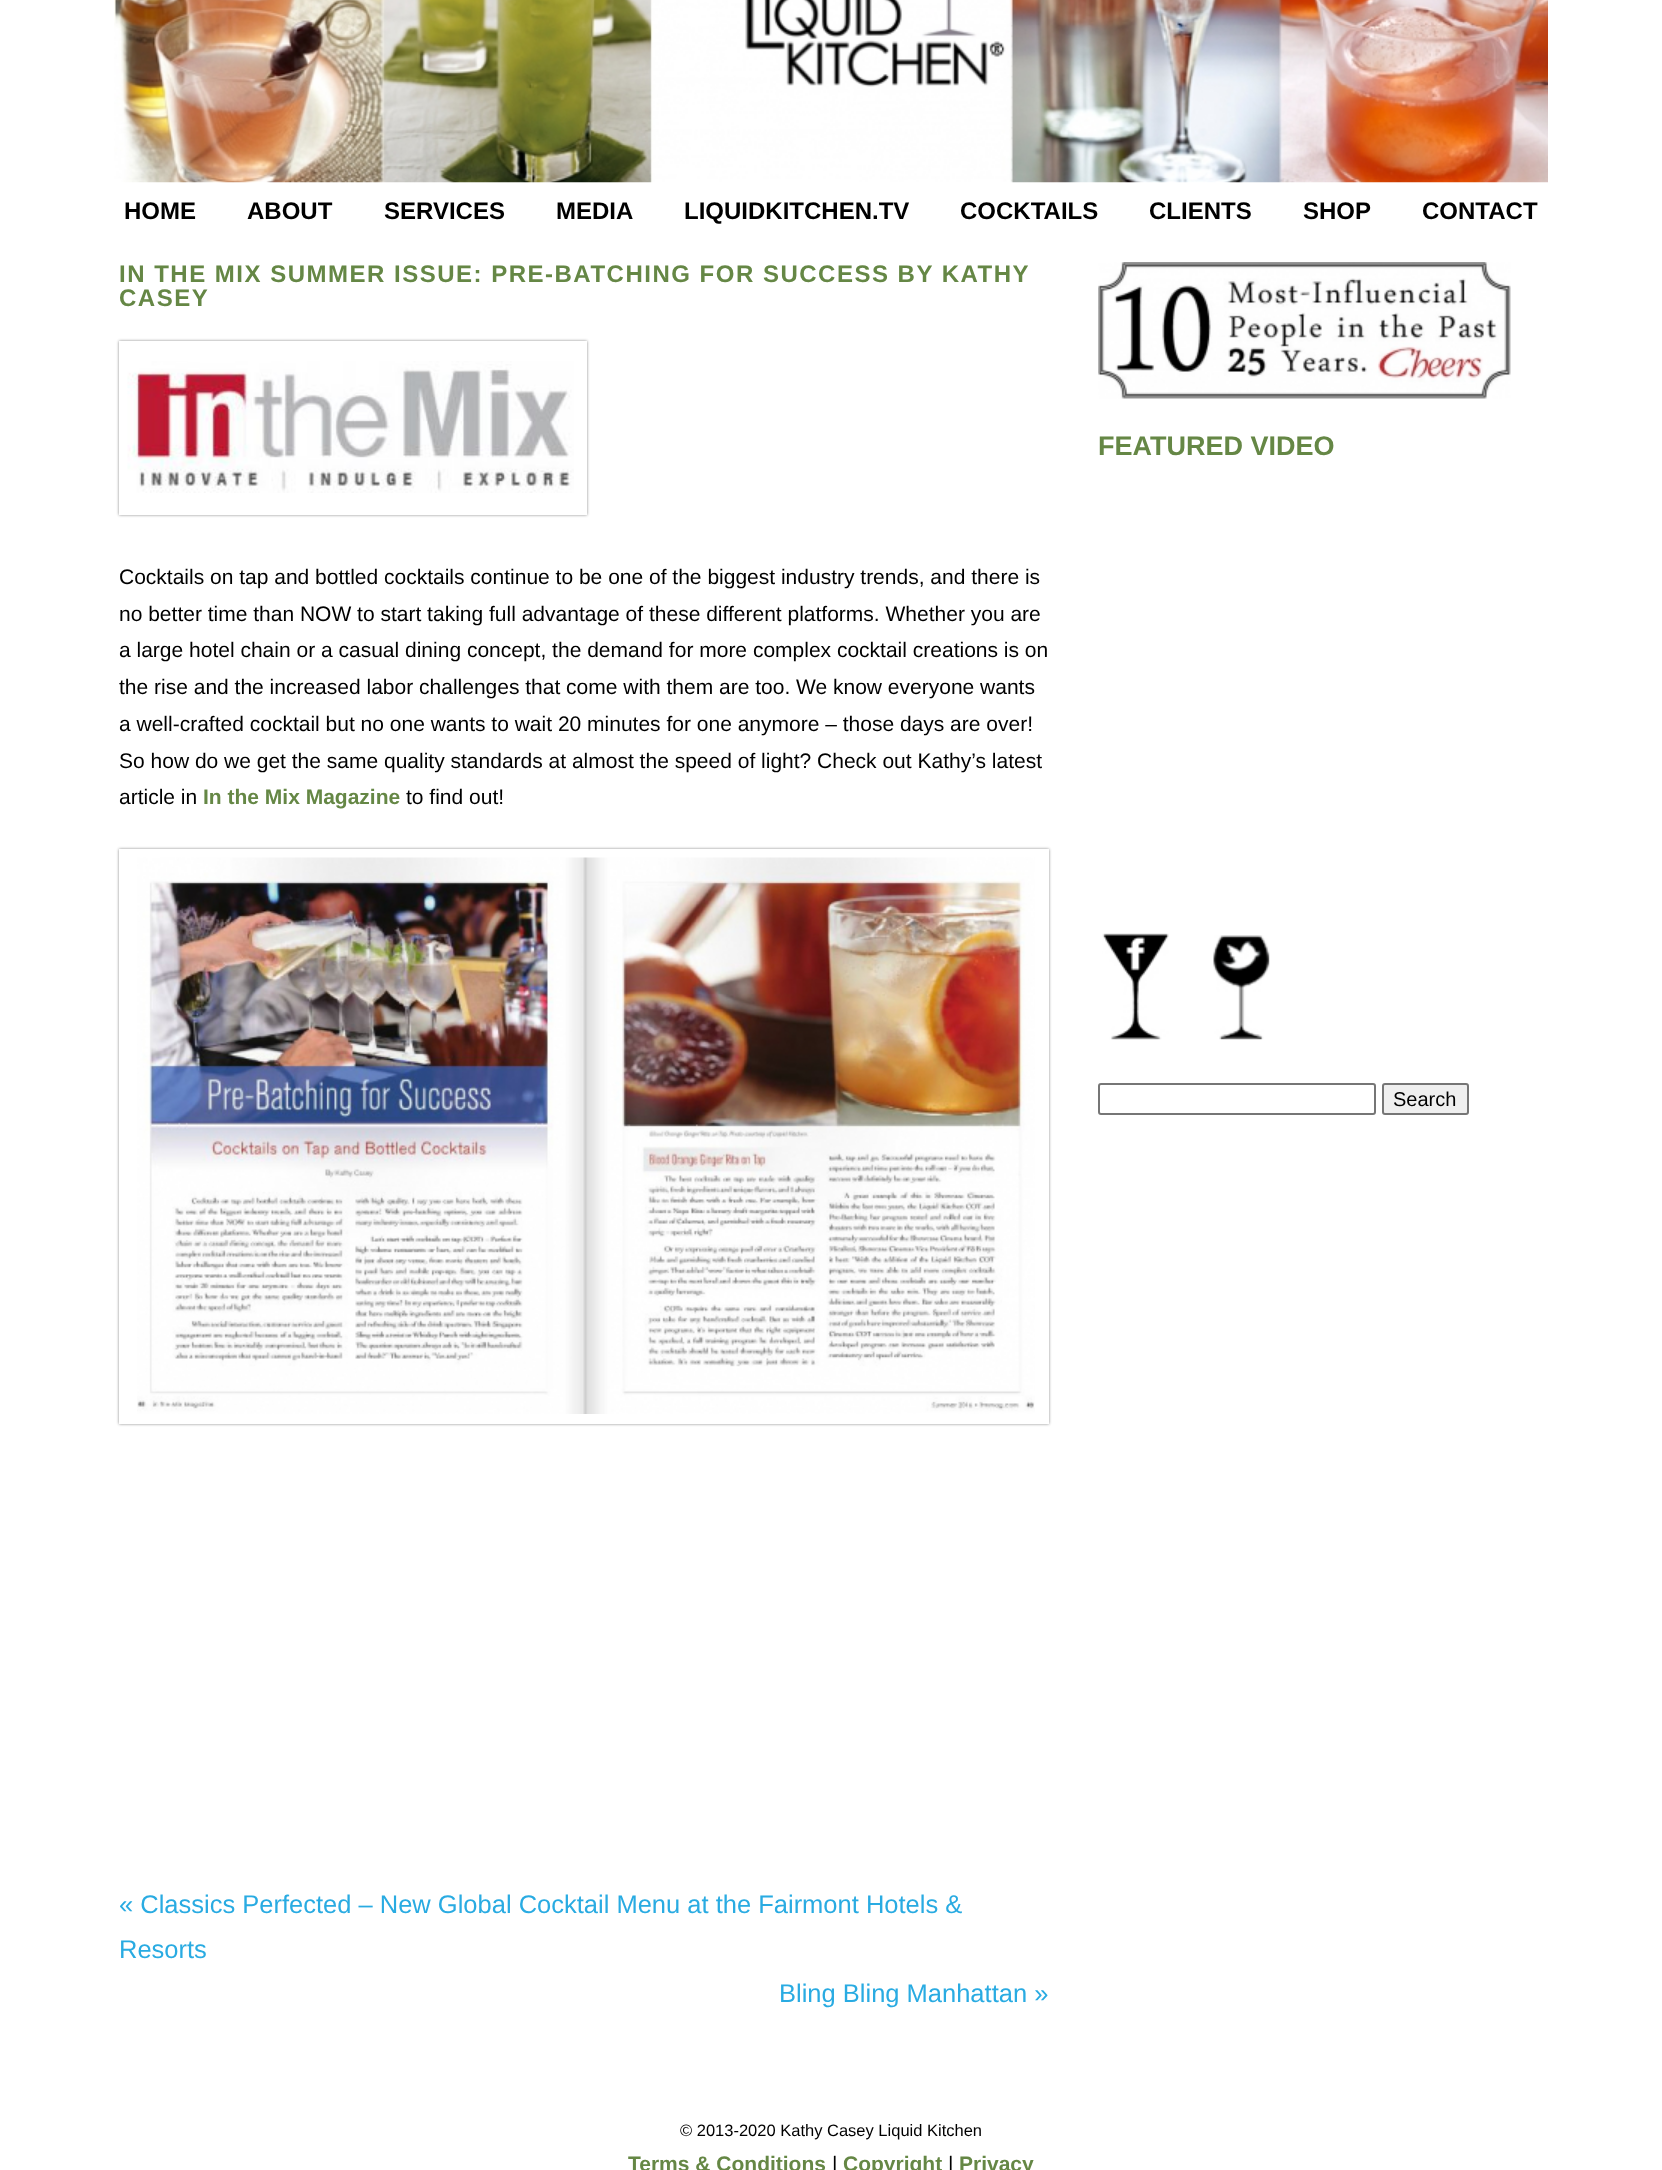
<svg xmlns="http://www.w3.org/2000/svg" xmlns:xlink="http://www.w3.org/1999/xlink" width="1662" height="2170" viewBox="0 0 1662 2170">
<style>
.cls-1{font:bold 24px Liberation Sans;fill:#000000}
.cls-2{font:bold 24px Liberation Sans;letter-spacing:1.5px;fill:#658745}
.cls-3{font:21px Liberation Sans;fill:#000000}
.cls-4{font:bold 21px Liberation Sans;fill:#658745}
.cls-5{font:25.5px Liberation Sans;fill:#29abe2}
.cls-6{font:bold 27px Liberation Sans;fill:#658745}
.cls-7{font:20px Liberation Sans;fill:#000000}
.cls-8{font:16.5px Liberation Sans;fill:#000000}
</style>
<defs>
<clipPath id="clip1"><path d="M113 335H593V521H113ZM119 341H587V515H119Z" clip-rule="evenodd"/></clipPath>
<clipPath id="clip2"><path d="M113 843H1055V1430H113ZM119 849H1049V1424H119Z" clip-rule="evenodd"/></clipPath>
</defs>
<rect width="100%" height="100%" fill="#ffffff"/>
<image xlink:href="image0.png" x="114" y="0" width="1434" height="183"/>
<g clip-path="url(#clip1)">
<rect fill="#888888" filter="blur(1.5px)" x="119" y="341" width="468" height="174"/>
</g>
<rect fill="none" stroke="#ffffff" stroke-width="9" x="123.5" y="345.5" width="459" height="165"/>
<image xlink:href="image1.png" x="127" y="361" width="447" height="132"/>
<g clip-path="url(#clip2)">
<rect fill="#888888" filter="blur(1.5px)" x="119" y="849" width="930" height="575"/>
</g>
<rect fill="none" stroke="#ffffff" stroke-width="9" x="123.5" y="853.5" width="921" height="566"/>
<image xlink:href="image2.png" x="137" y="857" width="898" height="557"/>
<image xlink:href="image3.png" x="1098" y="262" width="413" height="137"/>
<image xlink:href="image4.png" x="1102" y="933" width="67" height="107"/>
<image xlink:href="image5.png" x="1213" y="935" width="57" height="105"/>
<rect fill="none" stroke="#767676" stroke-width="2" x="1099" y="1084" width="276" height="30" rx="2"/>
<rect fill="#efefef" stroke="#767676" stroke-width="2" x="1383" y="1084" width="85" height="30" rx="2"/>
<text class="cls-1" x="124" y="219">HOME</text>
<text class="cls-1" x="247" y="219">ABOUT</text>
<text class="cls-1" x="384" y="219">SERVICES</text>
<text class="cls-1" x="556" y="219">MEDIA</text>
<text class="cls-1" x="684" y="219">LIQUIDKITCHEN.TV</text>
<text class="cls-1" x="960" y="219">COCKTAILS</text>
<text class="cls-1" x="1149" y="219">CLIENTS</text>
<text class="cls-1" x="1303" y="219">SHOP</text>
<text class="cls-1" x="1422" y="219">CONTACT</text>
<text class="cls-2"><tspan x="119" y="282">IN THE MIX SUMMER ISSUE: PRE-BATCHING FOR SUCCESS BY KATHY</tspan><tspan x="119" y="306">CASEY</tspan></text>
<text class="cls-3"><tspan x="119" y="584">Cocktails on tap and bottled cocktails continue to be one of the biggest industry trends, and there is</tspan><tspan x="119" y="621">no better time than NOW to start taking full advantage of these different platforms. Whether you are</tspan><tspan x="119" y="657">a large hotel chain or a casual dining concept, the demand for more complex cocktail creations is on</tspan><tspan x="119" y="694">the rise and the increased labor challenges that come with them are too. We know everyone wants</tspan><tspan x="119" y="731">a well-crafted cocktail but no one wants to wait 20 minutes for one anymore – those days are over!</tspan><tspan x="119" y="768">So how do we get the same quality standards at almost the speed of light? Check out Kathy’s latest</tspan><tspan x="119" y="804">article in</tspan></text>
<text class="cls-4" x="203" y="804">In the Mix Magazine</text>
<text class="cls-3" x="406" y="804">to find out!</text>
<text class="cls-5"><tspan x="119" y="1913">« Classics Perfected – New Global Cocktail Menu at the Fairmont Hotels &amp;</tspan><tspan x="119" y="1958">Resorts</tspan></text>
<text class="cls-5" x="779" y="2002">Bling Bling Manhattan »</text>
<text class="cls-6" x="1098" y="455">FEATURED VIDEO</text>
<text class="cls-7" x="1393" y="1106">Search</text>
<text class="cls-8" x="680" y="2136">© 2013-2020 Kathy Casey Liquid Kitchen</text>
<text class="cls-4" x="628" y="2171">Terms &amp; Conditions</text>
<text class="cls-3" x="832" y="2171">|</text>
<text class="cls-4" x="843" y="2171">Copyright</text>
<text class="cls-3" x="948" y="2171">|</text>
<text class="cls-4" x="959" y="2171">Privacy</text>
</svg>
